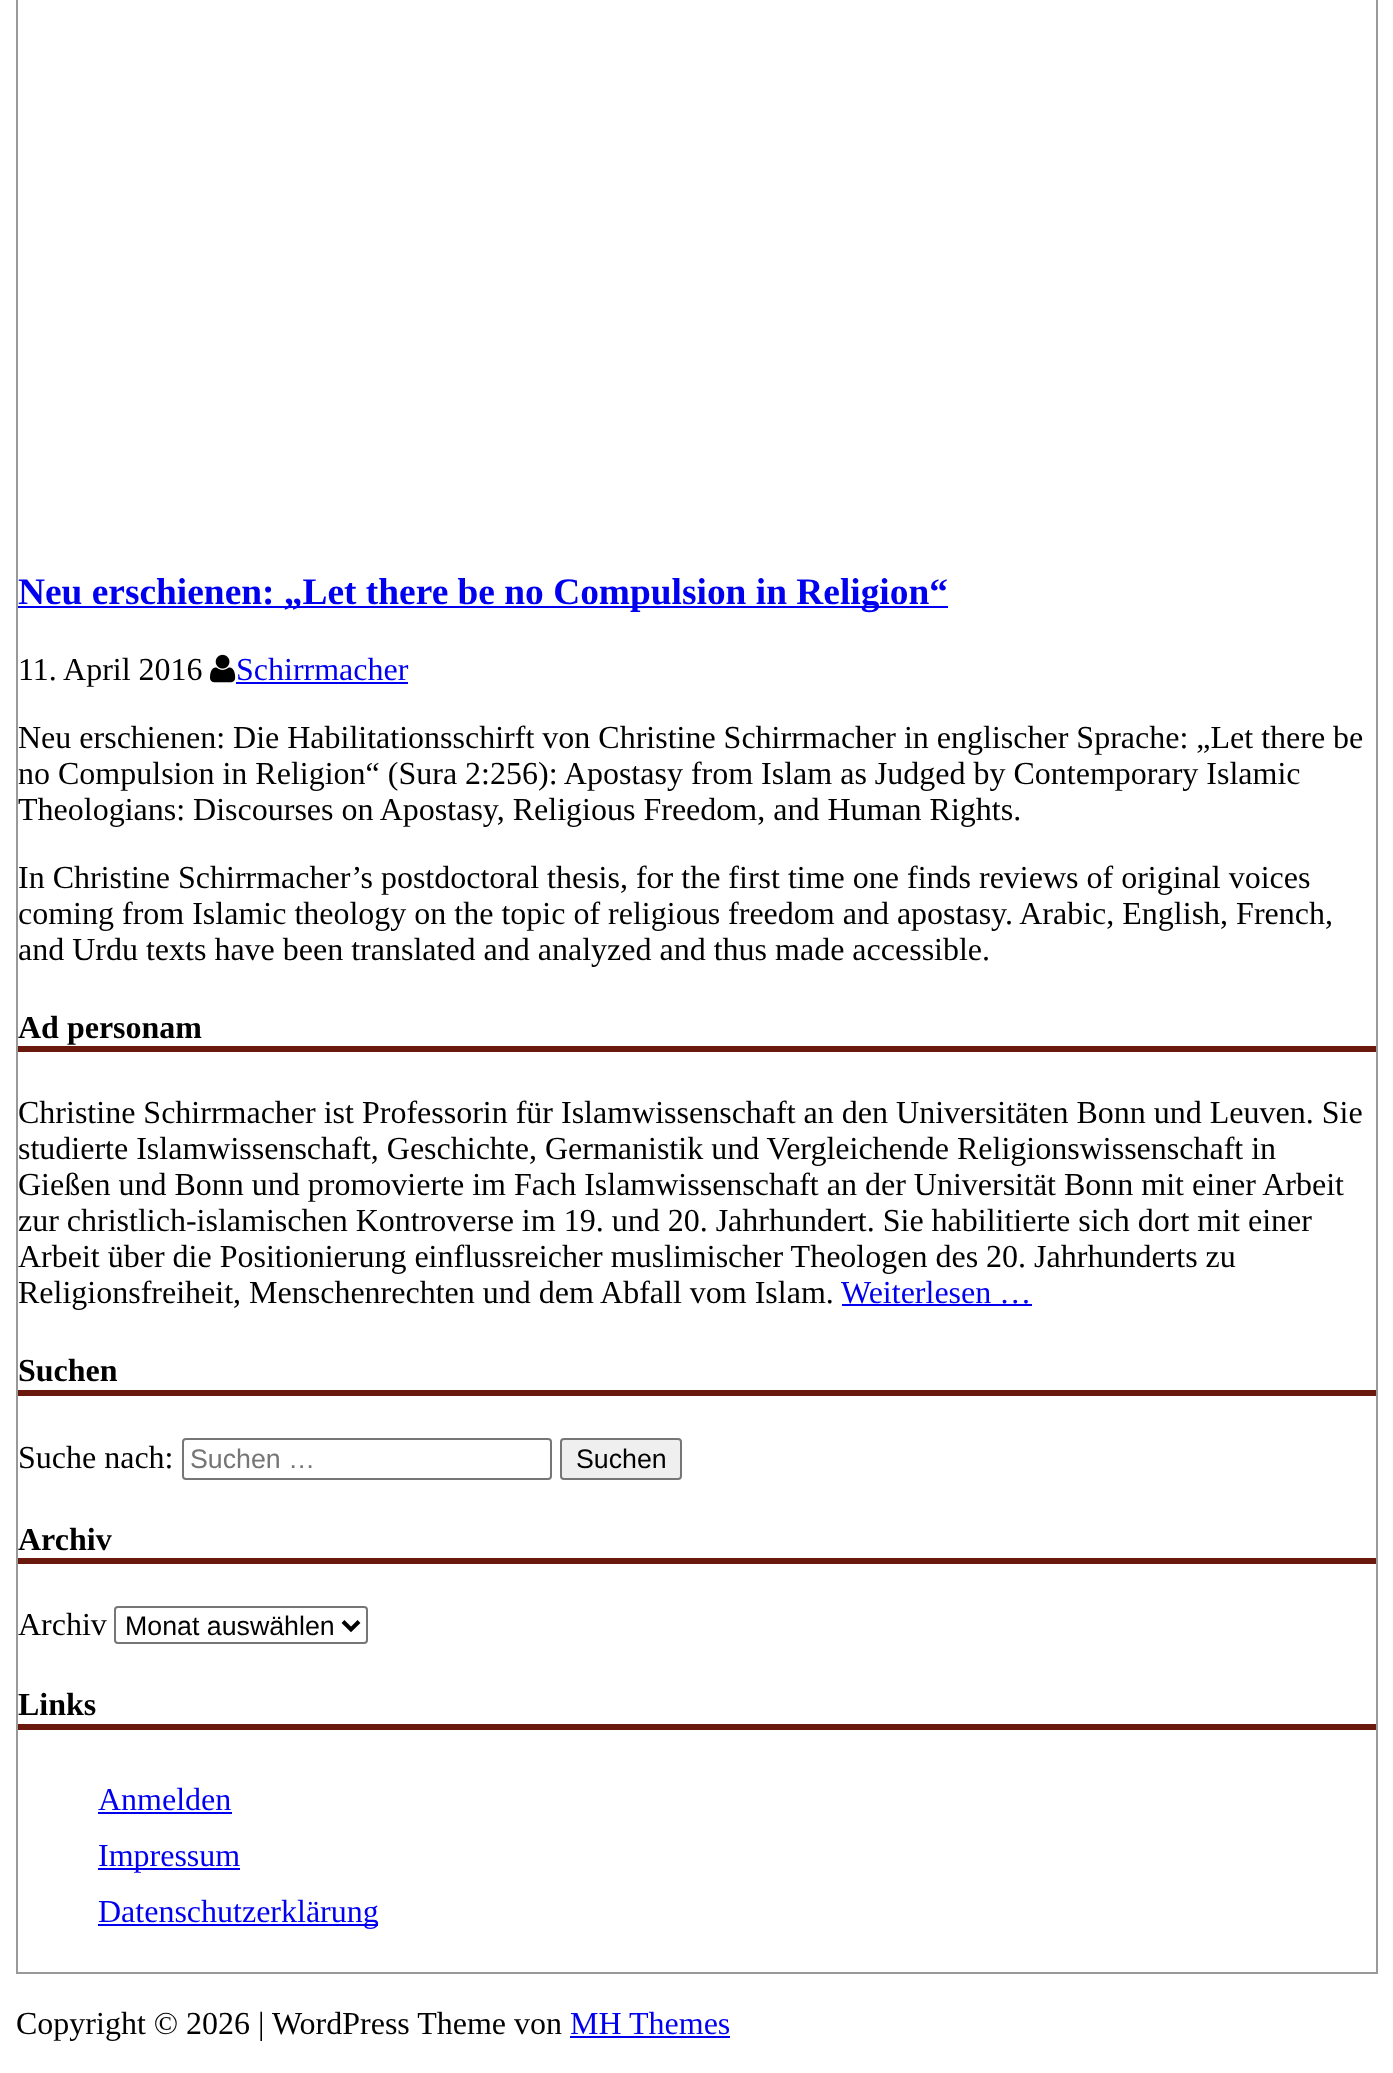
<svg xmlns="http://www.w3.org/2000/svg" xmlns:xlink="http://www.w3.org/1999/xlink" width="1393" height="2073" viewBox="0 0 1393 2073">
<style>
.cls-1{font:bold 37.4px Liberation Serif;fill:#0000ee}
.cls-2{font:32px Liberation Serif;fill:#000000}
.cls-3{font:32px Liberation Serif;fill:#0000ee}
.cls-4{font:bold 32px Liberation Serif;fill:#000000}
.cls-5{font:26.75px Liberation Sans;fill:#757575}
.cls-6{font:26.75px Liberation Sans;fill:#000000}
</style>
<rect width="100%" height="100%" fill="#ffffff"/>
<rect fill="#999999" x="1376" y="0" width="2" height="1974"/>
<rect fill="#999999" x="16" y="1972" width="1362" height="2"/>
<rect fill="#999999" x="16" y="0" width="2" height="1974"/>
<rect fill="#0000ee" x="18" y="606" width="930" height="2"/>
<image xlink:href="image0.png" x="210" y="654" width="26" height="29"/>
<rect fill="#0000ee" x="236" y="682" width="172" height="2"/>
<rect fill="#6b180d" x="18" y="1046" width="1358" height="6"/>
<rect fill="#0000ee" x="842" y="1304" width="190" height="2"/>
<rect fill="#6b180d" x="18" y="1390" width="1358" height="6"/>
<rect fill="none" stroke="#767676" stroke-width="2" x="183" y="1439" width="368" height="40" rx="3"/>
<rect fill="#efefef" stroke="#767676" stroke-width="2" x="561" y="1439" width="120" height="40" rx="3"/>
<rect fill="#6b180d" x="18" y="1558" width="1358" height="6"/>
<rect fill="none" stroke="#767676" stroke-width="2" x="115" y="1607" width="252" height="36" rx="3"/>
<path fill="none" stroke="#000000" stroke-width="4" d="M343 1621.5L351 1629.5L359 1621.5"/>
<rect fill="#6b180d" x="18" y="1724" width="1358" height="6"/>
<rect fill="#0000ee" x="98" y="1812" width="134" height="2"/>
<rect fill="#0000ee" x="98" y="1868" width="142" height="2"/>
<rect fill="#0000ee" x="98" y="1924" width="280" height="2"/>
<rect fill="#0000ee" x="570" y="2036" width="160" height="2"/>
<text class="cls-1" x="18" y="604">Neu erschienen: „Let there be no Compulsion in Religion“</text>
<text class="cls-2" x="18" y="680">11. April 2016</text>
<text class="cls-3" x="236" y="680">Schirrmacher</text>
<text class="cls-2"><tspan x="18" y="748">Neu erschienen: Die Habilitationsschirft von Christine Schirrmacher in englischer Sprache: „Let there be</tspan><tspan x="18" y="784">no Compulsion in Religion“ (Sura 2:256): Apostasy from Islam as Judged by Contemporary Islamic</tspan><tspan x="18" y="820">Theologians: Discourses on Apostasy, Religious Freedom, and Human Rights.</tspan></text>
<text class="cls-2"><tspan x="18" y="888">In Christine Schirrmacher’s postdoctoral thesis, for the first time one finds reviews of original voices</tspan><tspan x="18" y="924">coming from Islamic theology on the topic of religious freedom and apostasy. Arabic, English, French,</tspan><tspan x="18" y="960">and Urdu texts have been translated and analyzed and thus made accessible.</tspan></text>
<text class="cls-4" x="18" y="1038">Ad personam</text>
<text class="cls-2"><tspan x="18" y="1123">Christine Schirrmacher ist Professorin für Islamwissenschaft an den Universitäten Bonn und Leuven. Sie</tspan><tspan x="18" y="1159">studierte Islamwissenschaft, Geschichte, Germanistik und Vergleichende Religionswissenschaft in</tspan><tspan x="18" y="1195">Gießen und Bonn und promovierte im Fach Islamwissenschaft an der Universität Bonn mit einer Arbeit</tspan><tspan x="18" y="1231">zur christlich-islamischen Kontroverse im 19. und 20. Jahrhundert. Sie habilitierte sich dort mit einer</tspan><tspan x="18" y="1267">Arbeit über die Positionierung einflussreicher muslimischer Theologen des 20. Jahrhunderts zu</tspan><tspan x="18" y="1303">Religionsfreiheit, Menschenrechten und dem Abfall vom Islam.</tspan></text>
<text class="cls-3" x="841" y="1303">Weiterlesen …</text>
<text class="cls-4" x="18" y="1381">Suchen</text>
<text class="cls-2" x="18" y="1468">Suche nach:</text>
<text class="cls-5" x="190" y="1468">Suchen …</text>
<text class="cls-6" x="576" y="1468">Suchen</text>
<text class="cls-4" x="18" y="1550">Archiv</text>
<text class="cls-2" x="18" y="1635">Archiv</text>
<text class="cls-6" x="125" y="1635">Monat auswählen</text>
<text class="cls-4" x="18" y="1715">Links</text>
<text class="cls-3"><tspan x="98" y="1810">Anmelden</tspan><tspan x="98" y="1866">Impressum</tspan><tspan x="98" y="1922">Datenschutzerklärung</tspan></text>
<text class="cls-2" x="16" y="2034">Copyright © 2026 | WordPress Theme von</text>
<text class="cls-3" x="570" y="2034">MH Themes</text>
</svg>
